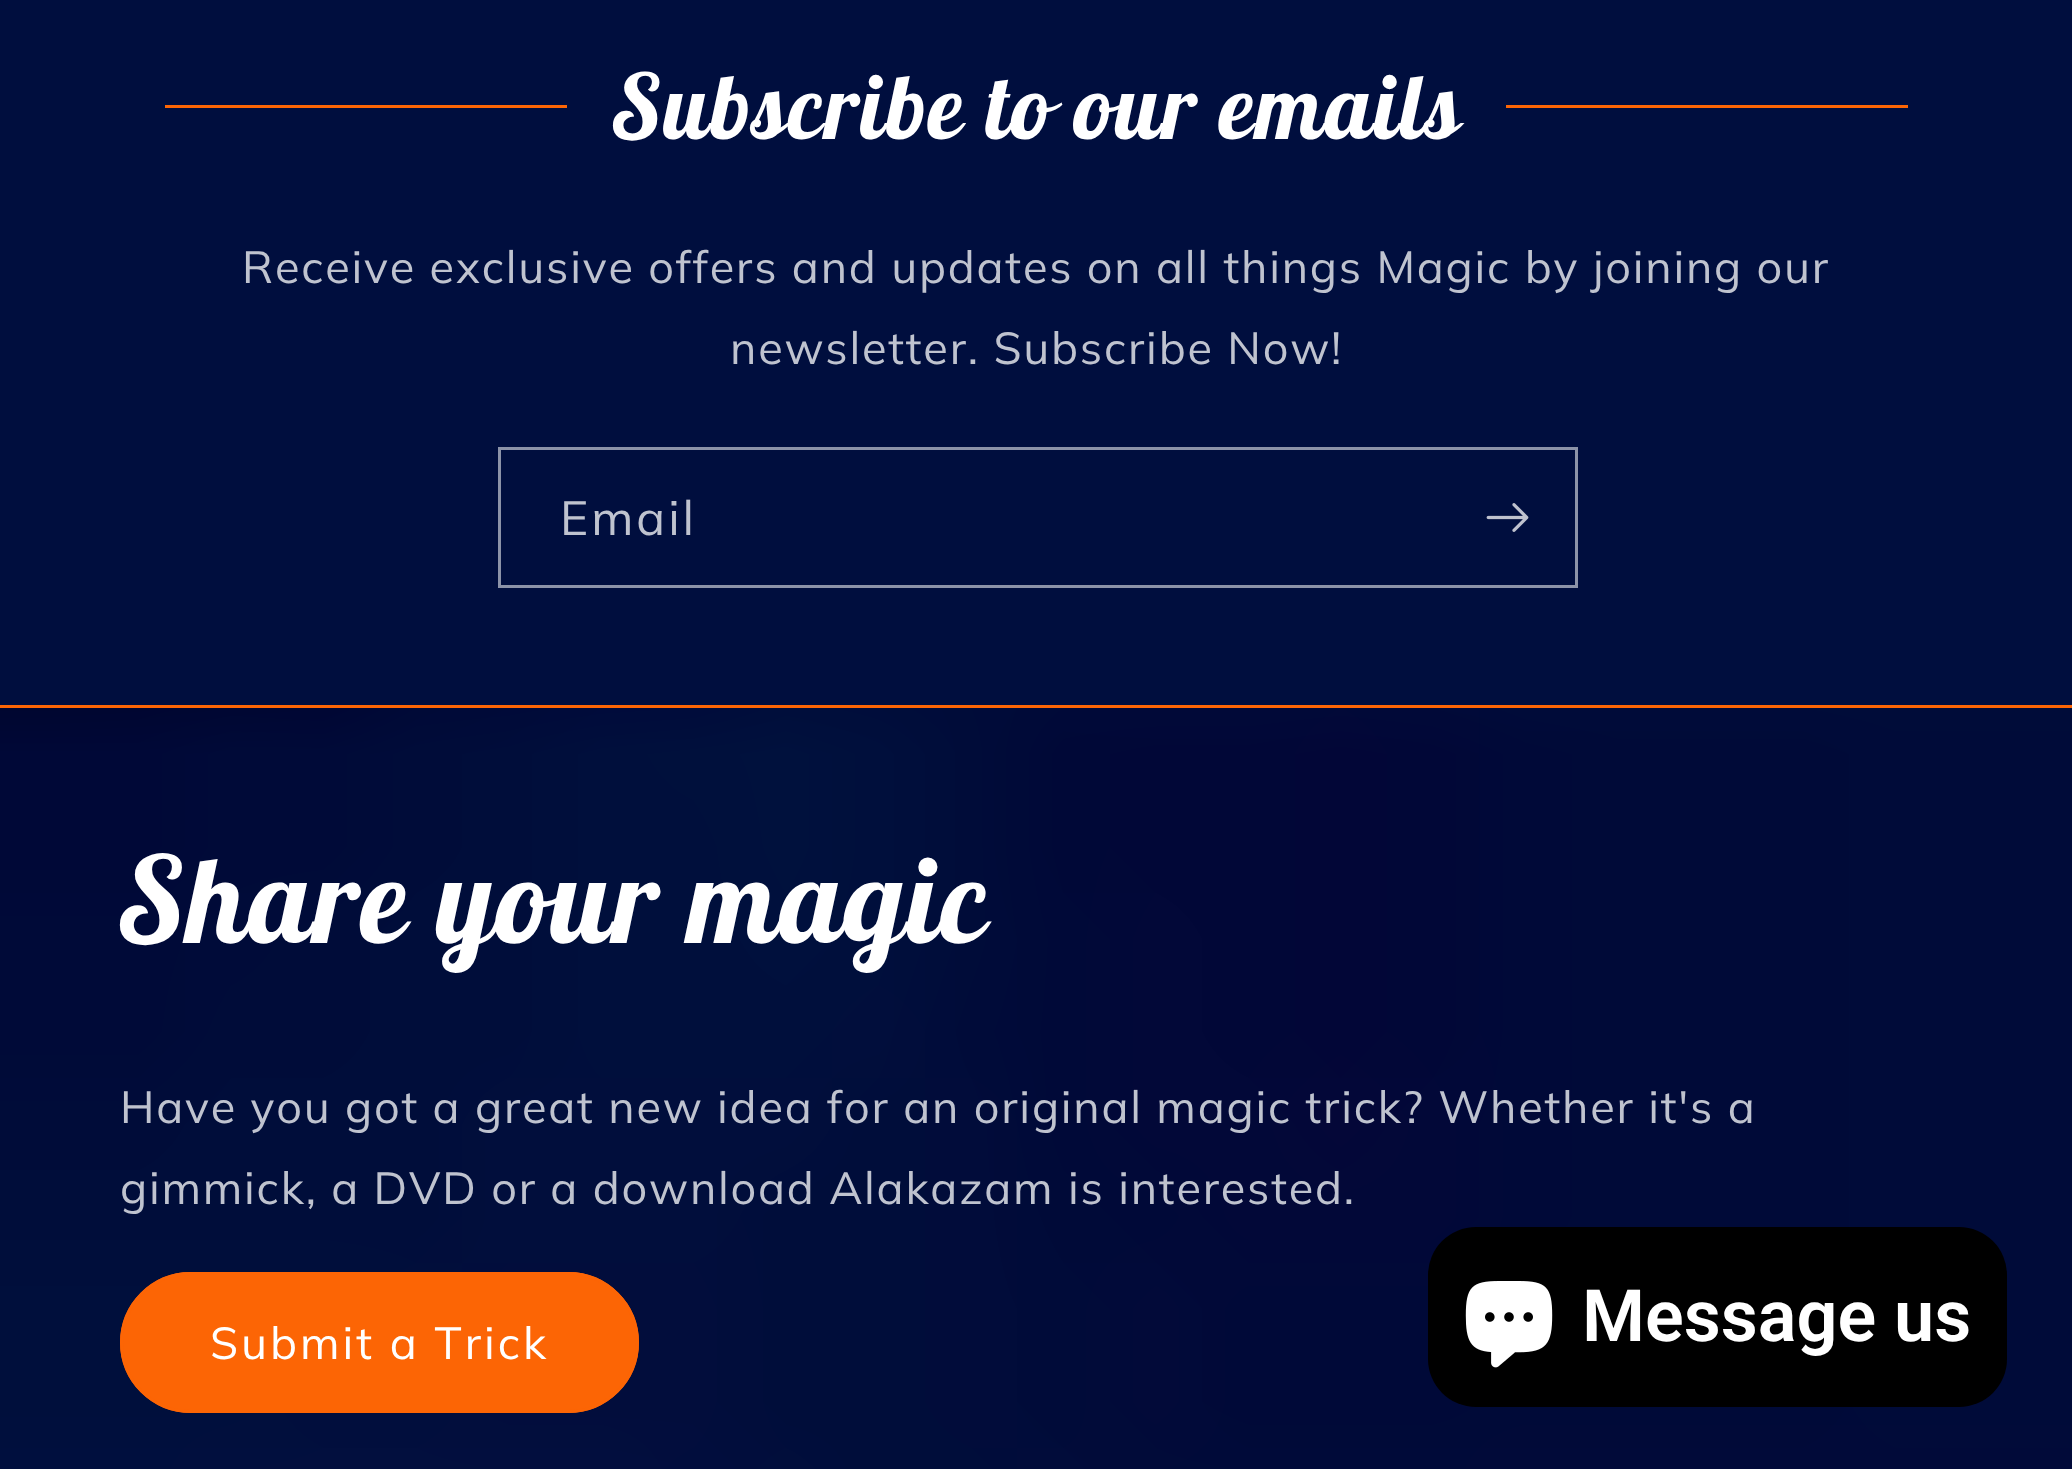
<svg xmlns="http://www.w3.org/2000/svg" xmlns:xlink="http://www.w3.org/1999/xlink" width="2072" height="1469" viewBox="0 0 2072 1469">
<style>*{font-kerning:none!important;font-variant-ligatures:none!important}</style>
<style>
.cls-1{font:italic bold 90px Lobster Two;letter-spacing:1.8px;fill:#ffffff}
.cls-2{font:45px Muli;letter-spacing:1.8px;fill:#bfc3cf}
.cls-3{font:48px Muli;letter-spacing:3px;fill:#bfc3cf}
.cls-4{font:italic bold 120px Lobster Two;letter-spacing:1.8px;fill:#ffffff}
.cls-5{font:45px Muli;letter-spacing:3px;fill:#ffffff}
.cls-6{font:600 72px Roboto;fill:#ffffff}
</style>
<rect width="100%" height="100%" fill="#ffffff"/>
<rect fill="#000e3e" x="0" y="0" width="2072" height="705"/>
<rect fill="#fc6505" x="165" y="105" width="402" height="3"/>
<rect fill="#fc6505" x="1506" y="105" width="402" height="3"/>
<rect fill="none" stroke="#8c93a8" stroke-width="3" x="499.5" y="448.5" width="1077" height="138"/>
<image xlink:href="image0.png" x="1486" y="503" width="43" height="29"/>
<image xlink:href="image1.png" x="0" y="708" width="2072" height="761"/>
<rect fill="#fc6505" x="0" y="705" width="2072" height="3"/>
<rect fill="#fc6505" x="120" y="1272" width="519" height="141" rx="70.5"/>
<rect fill="none" stroke="#fc6505" stroke-width="3" x="121.5" y="1273.5" width="516" height="138" rx="69"/>
<rect fill="#000000" x="1428" y="1227" width="579" height="180" rx="48"/>
<image xlink:href="image2.png" x="1465" y="1281" width="88" height="87"/>
<text class="cls-1" x="613" y="139">Subscribe to our emails</text>
<text class="cls-2" x="242" y="283">Receive exclusive offers and updates on all things Magic by joining our</text>
<text class="cls-2" x="730" y="364">newsletter. Subscribe Now!</text>
<text class="cls-3" x="560" y="535">Email</text>
<text class="cls-4" x="120" y="943">Share your magic</text>
<text class="cls-2"><tspan x="120" y="1123">Have you got a great new idea for an original magic trick? Whether it's a</tspan><tspan x="120" y="1204">gimmick, a DVD or a download Alakazam is interested.</tspan></text>
<text class="cls-5" x="210" y="1359">Submit a Trick</text>
<text class="cls-6" x="1582" y="1341">Message us</text>
</svg>
